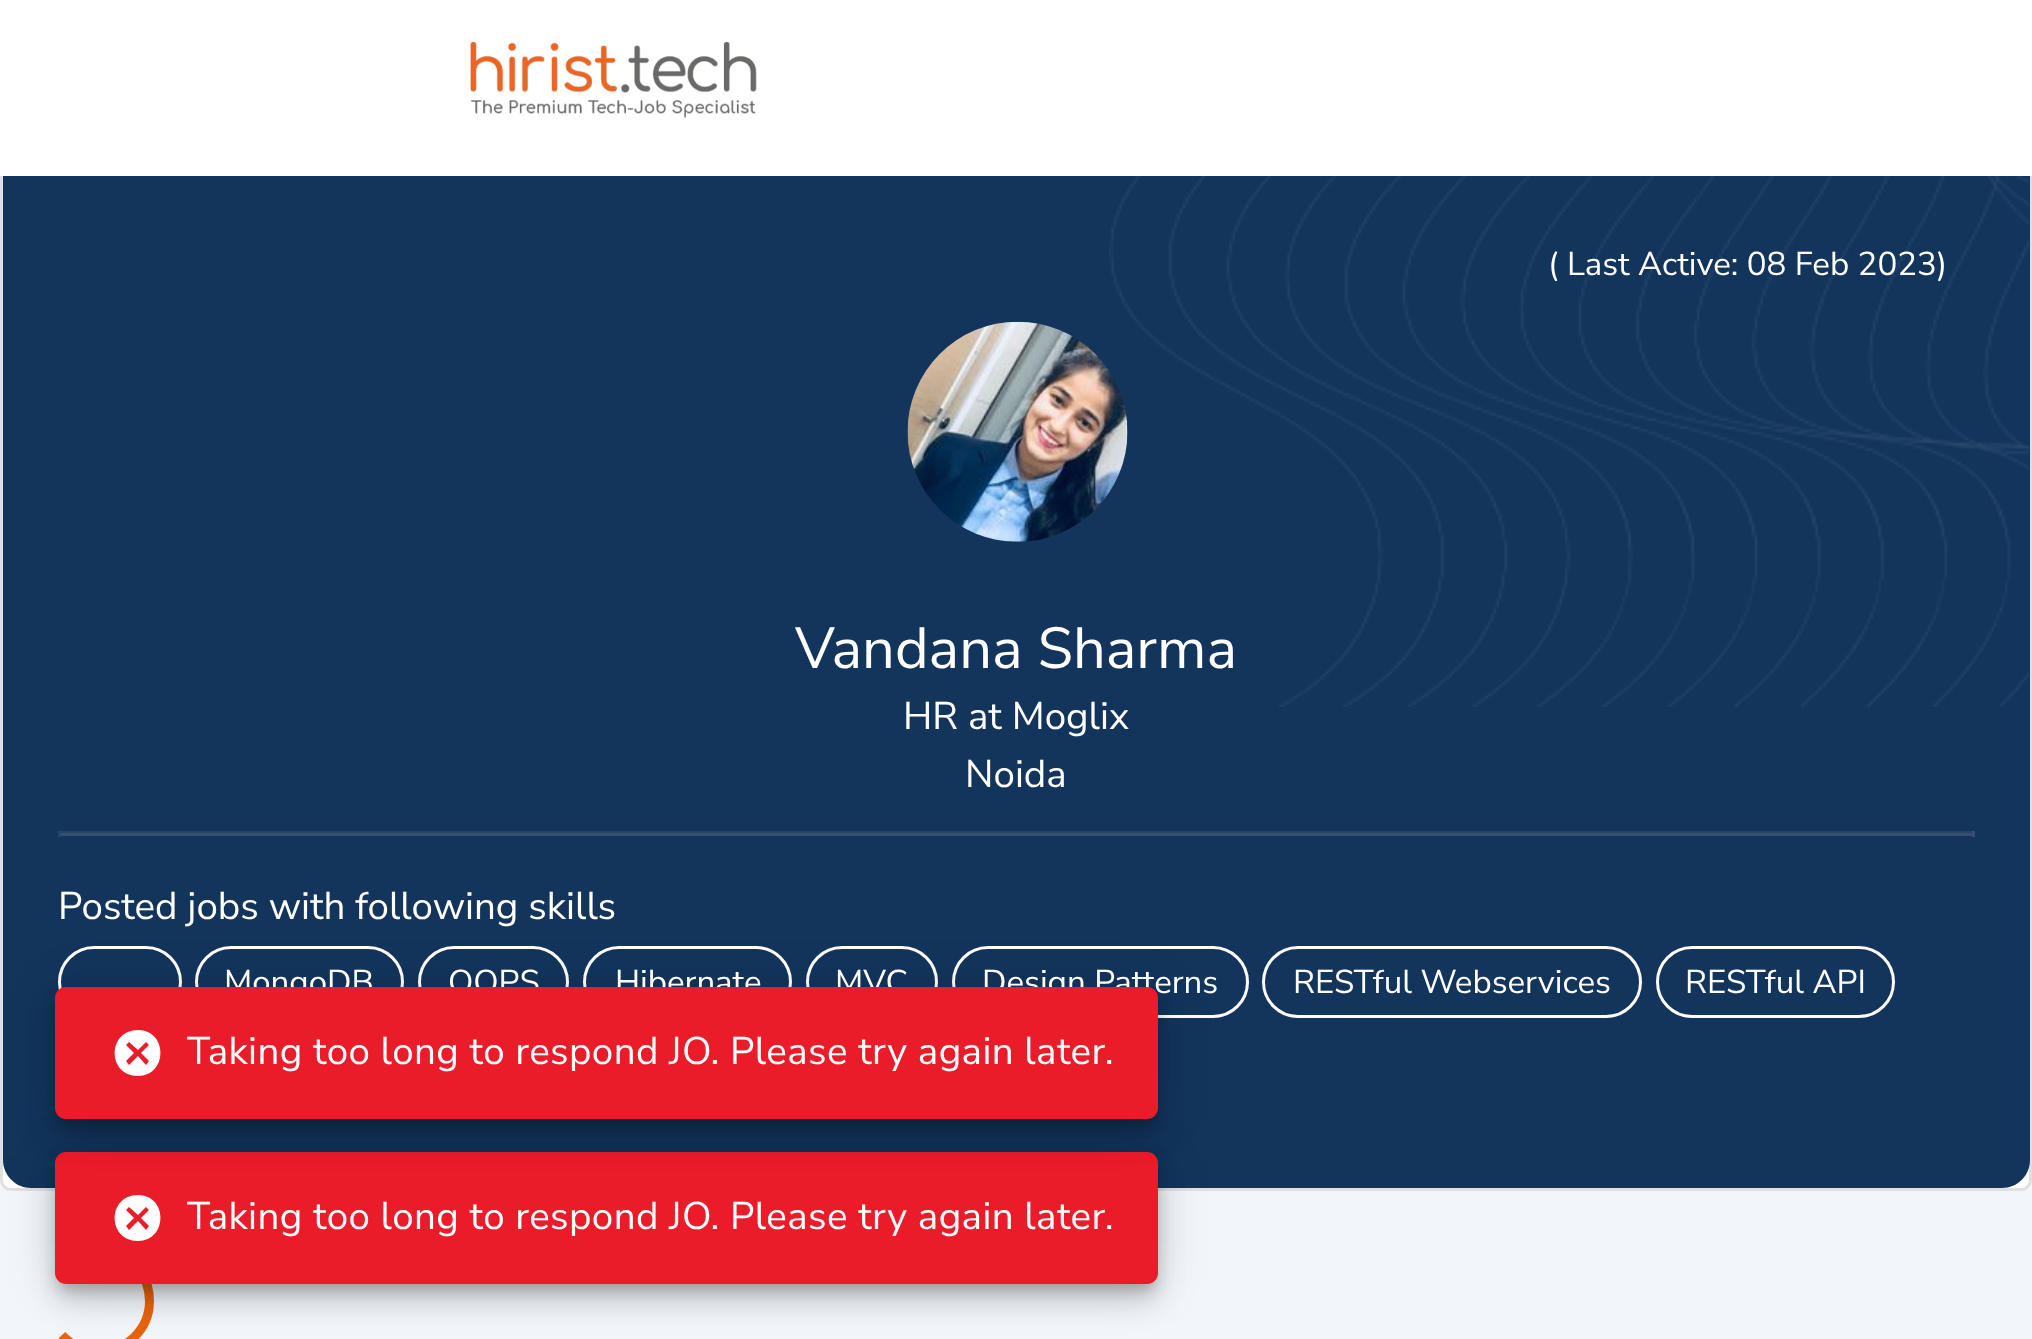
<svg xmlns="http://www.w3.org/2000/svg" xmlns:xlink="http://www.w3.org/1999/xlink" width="2032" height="1339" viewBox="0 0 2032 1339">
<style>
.cls-1{font:33px Nunito Sans;fill:#ffffff}
.cls-2{font:57.75px Nunito Sans;fill:#ffffff}
.cls-3{font:38.5px Nunito Sans;fill:#ffffff}
.cls-4{font:38.5px Nunito Sans;letter-spacing:0.4px;fill:#ffffff}
</style>
<rect width="100%" height="100%" fill="#f2f5fa"/>
<rect fill="#ffffff" x="0" y="154" width="2032" height="1037" rx="11"/>
<rect fill="none" stroke="#000000" stroke-opacity="0.12" stroke-width="3" x="1.5" y="155.5" width="2029" height="1034" rx="9.5"/>
<path fill="#13355c" d="M11 157H2022C2026.5 157 2030 160.5 2030 165V1160C2030 1175.5 2017.5 1188 2002 1188H31C15.5 1188 3 1175.5 3 1160V165C3 160.5 6.5 157 11 157Z"/>
<rect fill="#ffffff" x="0" y="0" width="2032" height="176"/>
<image xlink:href="image0.png" x="470" y="41" width="287" height="77"/>
<image xlink:href="image1.png" x="1109" y="176" width="920" height="531"/>
<rect fill="#284566" x="58" y="831" width="1917" height="2"/>
<rect fill="#345172" x="1972" y="831" width="3" height="6"/>
<rect fill="#345172" x="58" y="833" width="1917" height="3"/>
<rect fill="#284566" x="58" y="831" width="3" height="6"/>
<rect fill="none" stroke="#ffffff" stroke-width="3" x="59.5" y="947.5" width="121" height="69" rx="34.5"/>
<rect fill="none" stroke="#ffffff" stroke-width="3" x="196.5" y="947.5" width="206" height="69" rx="34.5"/>
<rect fill="none" stroke="#ffffff" stroke-width="3" x="419.5" y="947.5" width="148" height="69" rx="34.5"/>
<rect fill="none" stroke="#ffffff" stroke-width="3" x="584.5" y="947.5" width="206" height="69" rx="34.5"/>
<rect fill="none" stroke="#ffffff" stroke-width="3" x="807.5" y="947.5" width="129" height="69" rx="34.5"/>
<rect fill="none" stroke="#ffffff" stroke-width="3" x="953.5" y="947.5" width="294" height="69" rx="34.5"/>
<rect fill="none" stroke="#ffffff" stroke-width="3" x="1263.5" y="947.5" width="377" height="69" rx="34.5"/>
<rect fill="none" stroke="#ffffff" stroke-width="3" x="1657.5" y="947.5" width="236" height="69" rx="34.5"/>
<image xlink:href="image2.png" x="907" y="321" width="221" height="221"/>
<path fill="none" stroke="#e9630c" stroke-width="9" d="M99 1250C127 1250 149.5 1273 149.5 1301C149.5 1328.5 127 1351.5 99 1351.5C84.5 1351.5 71.5 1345 62 1335"/>
<rect fill="#000000" fill-opacity="0.12" filter="blur(25px)" x="55" y="1155" width="1103" height="132" rx="11"/>
<rect fill="#000000" fill-opacity="0.14" filter="blur(14px)" x="55" y="1169" width="1103" height="132" rx="11"/>
<rect fill="#000000" fill-opacity="0.2" filter="blur(7px)" x="58" y="1163" width="1097" height="127" rx="8"/>
<rect fill="#eb1c2a" x="55" y="1152" width="1103" height="132" rx="11"/>
<path fill="#ffffff" d="M138 1195C168 1195 168 1241 138 1241C107 1241 107 1195 138 1195M146 1207L138 1215L129 1207L126 1210L134 1218L126 1226L129 1230L138 1221L146 1230L149 1226L141 1218L149 1210Z"/>
<rect fill="#000000" fill-opacity="0.12" filter="blur(25px)" x="55" y="990" width="1103" height="132" rx="11"/>
<rect fill="#000000" fill-opacity="0.14" filter="blur(14px)" x="55" y="1004" width="1103" height="132" rx="11"/>
<rect fill="#000000" fill-opacity="0.2" filter="blur(7px)" x="58" y="998" width="1097" height="127" rx="8"/>
<text class="cls-1" x="1548" y="275">( Last Active: 08 Feb 2023)</text>
<text class="cls-2" x="795" y="668">Vandana Sharma</text>
<text class="cls-3" x="903" y="729">HR at Moglix</text>
<text class="cls-3" x="965" y="787">Noida</text>
<text class="cls-3" x="58" y="919">Posted jobs with following skills</text>
<text class="cls-1" x="224" y="993">MongoDB</text>
<text class="cls-1" x="448" y="993">OOPS</text>
<text class="cls-1" x="615" y="993">Hibernate</text>
<text class="cls-1" x="835" y="993">MVC</text>
<text class="cls-1" x="982" y="993">Design Patterns</text>
<text class="cls-1" x="1293" y="993">RESTful Webservices</text>
<text class="cls-1" x="1685" y="993">RESTful API</text>
<rect fill="#eb1c2a" x="55" y="987" width="1103" height="132" rx="11"/>
<path fill="#ffffff" d="M138 1030C168 1030 168 1076 138 1076C107 1076 107 1030 138 1030M146 1042L138 1050L129 1042L126 1045L134 1053L126 1061L129 1065L138 1056L146 1065L149 1061L141 1053L149 1045Z"/>
<text class="cls-4" x="187" y="1064">Taking too long to respond JO. Please try again later.</text>
<text class="cls-4" x="187" y="1229">Taking too long to respond JO. Please try again later.</text>
</svg>
